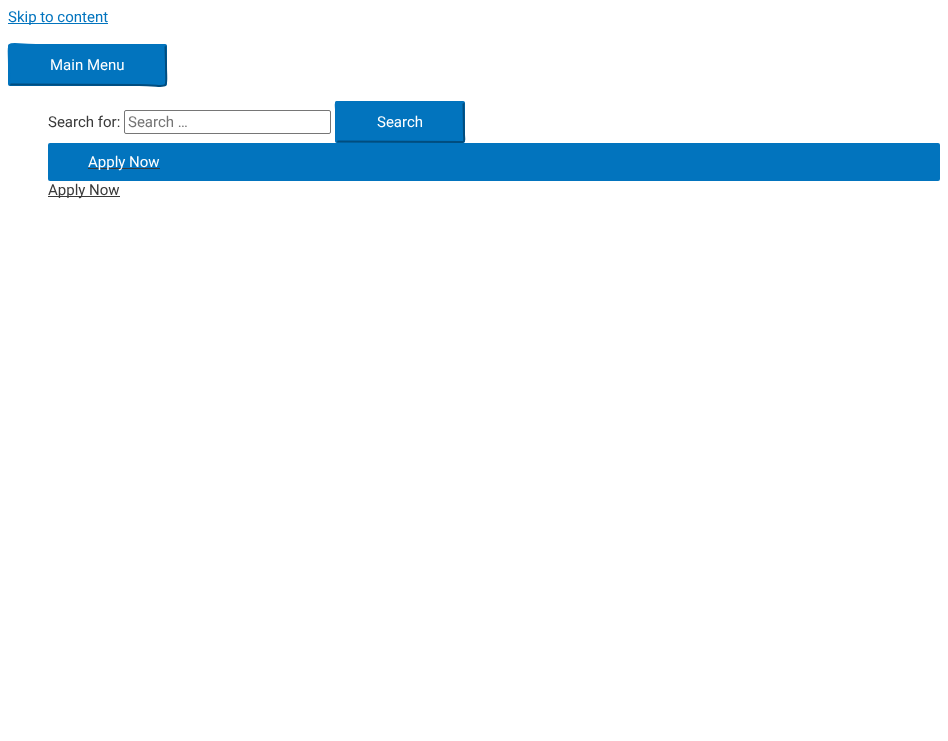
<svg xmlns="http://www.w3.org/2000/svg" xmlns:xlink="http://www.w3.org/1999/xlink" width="948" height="741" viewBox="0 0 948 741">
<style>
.cls-1{font:15px Roboto;fill:#0274be}
.cls-2{font:15px Roboto;fill:#ffffff}
.cls-3{font:15px Roboto;fill:#3a3a3a}
.cls-4{font:15px Roboto;fill:#757575}
</style>
<rect width="100%" height="100%" fill="#ffffff"/>
<rect fill="#0274be" x="8" y="23" width="100" height="1"/>
<rect fill="#0274be" x="8" y="44" width="159" height="42" rx="2"/>
<path fill="none" stroke="#014d7f" stroke-width="2" d="M165.5 45.5L166 65C166 93 171.5 85 139 85L9.5 84.5"/>
<path fill="none" stroke="#0274be" stroke-width="2" d="M9.5 84.5L9 65C9 37 3.5 45 36 45L165.5 45.5"/>
<rect fill="none" stroke="#767676" x="124.5" y="110.5" width="206" height="23" rx="1.5"/>
<rect fill="#0274be" x="335" y="101" width="130" height="42" rx="2"/>
<path fill="none" stroke="#014d7f" stroke-width="2" d="M463.5 102.5L464 134.5C464 136.5 465 142 463 142L336.5 141.5"/>
<path fill="none" stroke="#0274be" stroke-width="2" d="M336.5 141.5L336 109.5C336 107.5 335 102 337 102L463.5 102.5"/>
<rect fill="#0274be" x="48" y="143" width="892" height="38" rx="2"/>
<rect fill="#3a3a3a" x="88" y="168" width="72" height="1"/>
<rect fill="#3a3a3a" x="48" y="196" width="72" height="1"/>
<text class="cls-1" x="8" y="22">Skip to content</text>
<text class="cls-2" x="50" y="70">Main Menu</text>
<text class="cls-3" x="48" y="127">Search for:</text>
<text class="cls-4" x="128" y="127">Search …</text>
<text class="cls-2" x="377" y="127">Search</text>
<text class="cls-2" x="88" y="167">Apply Now</text>
<text class="cls-3" x="48" y="195">Apply Now</text>
</svg>
